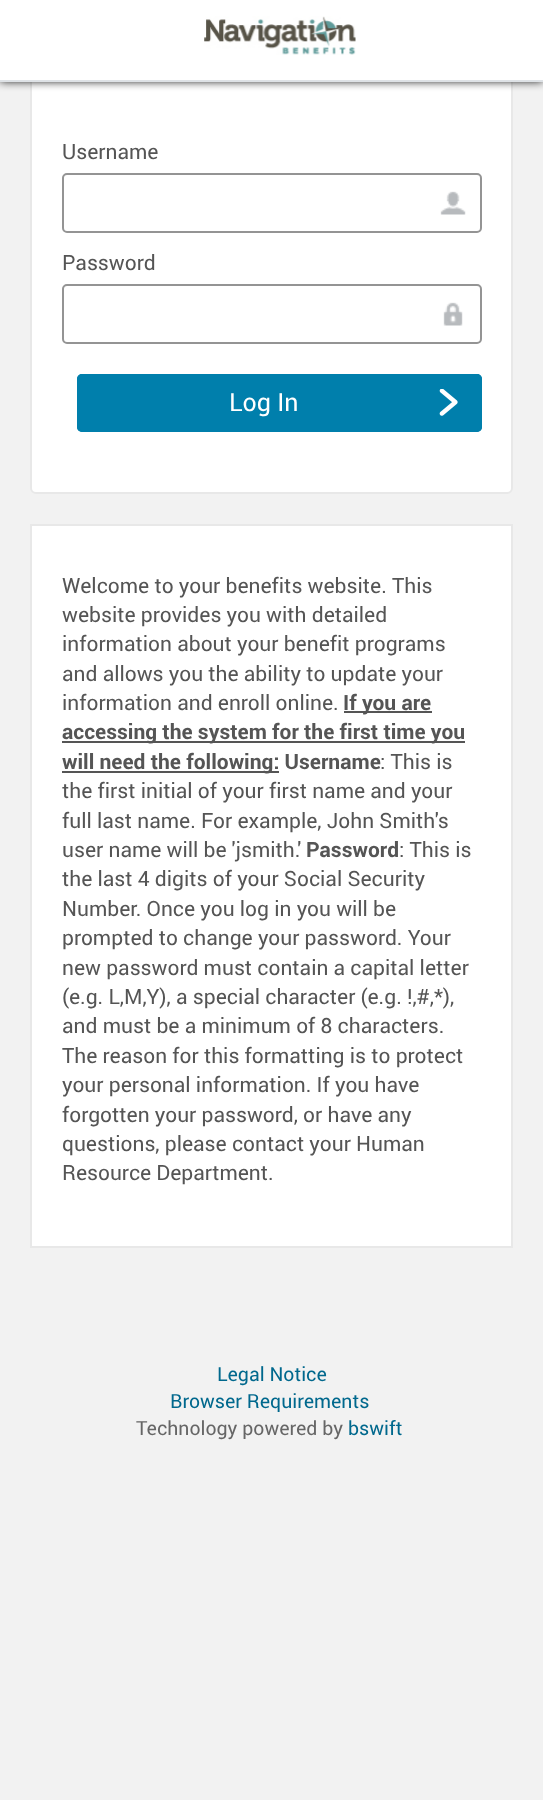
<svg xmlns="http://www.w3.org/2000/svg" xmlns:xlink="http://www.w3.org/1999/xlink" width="543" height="1800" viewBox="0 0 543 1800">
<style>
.cls-1{font:21px Roboto;fill:#555555}
.cls-2{font:25px Roboto;fill:#ffffff}
.cls-3{font:bold 21px Roboto;fill:#555555}
.cls-4{font:19.5px Roboto;fill:#00688d}
.cls-5{font:19.5px Roboto;fill:#666666}
</style>
<rect width="100%" height="100%" fill="#f2f2f2"/>
<rect fill="#ffffff" stroke="#e8e8e8" stroke-width="2" x="31" y="16" width="481" height="477" rx="5"/>
<rect fill="#000000" filter="blur(5px)" x="0" y="0" width="543" height="81"/>
<rect fill="#ffffff" x="0" y="0" width="543" height="80"/>
<rect fill="#dee2e6" x="0" y="80" width="543" height="2"/>
<image xlink:href="image0.png" x="204" y="16" width="152" height="39"/>
<image xlink:href="image1.png" x="440" y="191" width="26" height="24"/>
<rect fill="none" stroke="#949494" stroke-width="2" x="63" y="174" width="418" height="58" rx="4"/>
<image xlink:href="image2.png" x="443" y="302" width="20" height="24"/>
<rect fill="none" stroke="#949494" stroke-width="2" x="63" y="285" width="418" height="58" rx="4"/>
<rect fill="#007fac" x="77" y="374" width="405" height="58" rx="5"/>
<image xlink:href="image3.png" x="439" y="389" width="19" height="27"/>
<rect fill="none" stroke="#007fac" stroke-width="2" x="78" y="375" width="403" height="56" rx="4"/>
<rect fill="#ffffff" stroke="#e8e8e8" stroke-width="2" x="31" y="525" width="481" height="722"/>
<rect fill="#555555" x="344" y="711" width="88" height="2"/>
<rect fill="#555555" x="62" y="741" width="403" height="2"/>
<rect fill="#555555" x="62" y="771" width="217" height="2"/>
<text class="cls-1" x="62" y="159">Username</text>
<text class="cls-1" x="62" y="270">Password</text>
<text class="cls-2" x="229" y="411">Log In</text>
<text class="cls-1"><tspan x="62" y="593">Welcome to your benefits website. This</tspan><tspan x="62" y="622">website provides you with detailed</tspan><tspan x="62" y="651">information about your benefit programs</tspan><tspan x="62" y="681">and allows you the ability to update your</tspan><tspan x="62" y="710">information and enroll online.</tspan></text>
<text class="cls-3" x="343" y="710">If you are</text>
<text class="cls-3"><tspan x="62" y="739">accessing the system for the first time you</tspan><tspan x="62" y="769">will need the following: Username</tspan></text>
<text class="cls-1" x="380" y="769">: This is</text>
<text class="cls-1"><tspan x="62" y="798">the first initial of your first name and your</tspan><tspan x="62" y="828">full last name. For example, John Smith's</tspan><tspan x="62" y="857">user name will be 'jsmith.'</tspan></text>
<text class="cls-3" x="306" y="857">Password</text>
<text class="cls-1" x="399" y="857">: This is</text>
<text class="cls-1"><tspan x="62" y="886">the last 4 digits of your Social Security</tspan><tspan x="62" y="916">Number. Once you log in you will be</tspan><tspan x="62" y="945">prompted to change your password. Your</tspan><tspan x="62" y="975">new password must contain a capital letter</tspan><tspan x="62" y="1004">(e.g. L,M,Y), a special character (e.g. !,#,*),</tspan><tspan x="62" y="1033">and must be a minimum of 8 characters.</tspan><tspan x="62" y="1063">The reason for this formatting is to protect</tspan><tspan x="62" y="1092">your personal information. If you have</tspan><tspan x="62" y="1122">forgotten your password, or have any</tspan><tspan x="62" y="1151">questions, please contact your Human</tspan><tspan x="62" y="1180">Resource Department.</tspan></text>
<text class="cls-4" x="217" y="1381">Legal Notice</text>
<text class="cls-4" x="170" y="1408">Browser Requirements</text>
<text class="cls-5" x="136" y="1435">Technology powered by</text>
<text class="cls-4" x="348" y="1435">bswift</text>
</svg>
